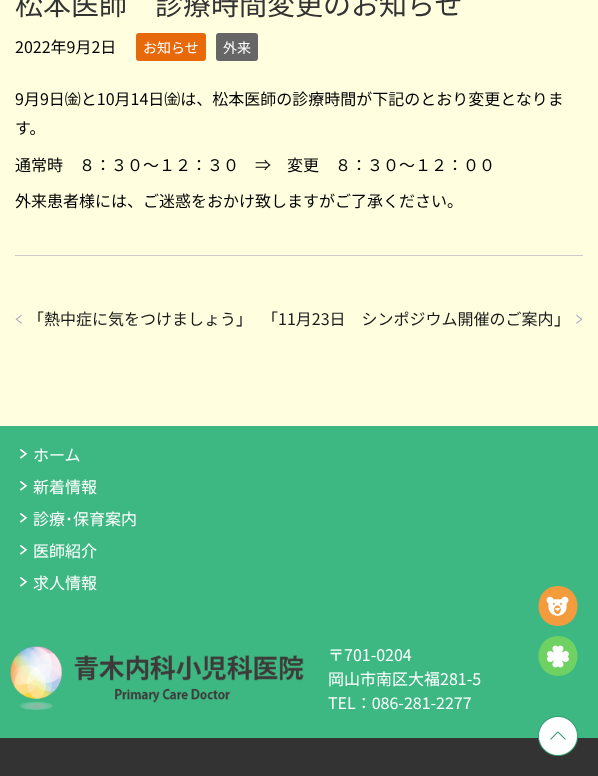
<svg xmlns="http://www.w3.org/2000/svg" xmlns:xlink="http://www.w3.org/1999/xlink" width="598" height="776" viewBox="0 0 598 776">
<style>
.cls-1{font:28px Noto Sans JP;fill:#333333}
.cls-2{font:16px Noto Sans JP;fill:#000000}
.cls-3{font:14px Noto Sans JP;fill:#ffffff}
.cls-4{font:16px Noto Sans JP;fill:#1a1a1a}
.cls-5{font:16px Noto Sans JP;fill:#ffffff}
</style>
<rect width="100%" height="100%" fill="#ffffe0"/>
<rect fill="#e7690a" x="136" y="33" width="70" height="28" rx="3"/>
<rect fill="#666666" x="216" y="33" width="42" height="28" rx="3"/>
<rect fill="#cccccc" x="15" y="255" width="568" height="1"/>
<image xlink:href="image0.png" x="15" y="314" width="7" height="10"/>
<image xlink:href="image1.png" x="576" y="314" width="7" height="10"/>
<rect fill="#3eb883" x="0" y="426" width="598" height="312"/>
<image xlink:href="image2.png" x="20" y="449" width="7" height="10"/>
<image xlink:href="image2.png" x="20" y="481" width="7" height="10"/>
<image xlink:href="image2.png" x="20" y="513" width="7" height="10"/>
<image xlink:href="image2.png" x="20" y="545" width="7" height="10"/>
<image xlink:href="image2.png" x="20" y="577" width="7" height="10"/>
<image xlink:href="image3.png" x="10" y="646" width="294" height="64"/>
<rect fill="#333333" x="0" y="738" width="598" height="38"/>
<image xlink:href="image4.png" x="538" y="716" width="40" height="40"/>
<path fill="#f49c3d" d="M558 586C584 586 584 626 558 626C532 626 532 586 558 586Z"/>
<image xlink:href="image5.png" x="546" y="596" width="23" height="20"/>
<path fill="#6fd162" d="M558 636C584 636 584 676 558 676C532 676 532 636 558 636Z"/>
<image xlink:href="image6.png" x="547" y="645" width="22" height="23"/>
<text class="cls-1" x="15" y="15">松本医師　診療時間変更のお知らせ</text>
<text class="cls-2" x="15" y="53">2022年9月2日</text>
<text class="cls-3" x="143" y="53">お知らせ</text>
<text class="cls-3" x="223" y="53">外来</text>
<text class="cls-2"><tspan x="15" y="105">9月9日㈮と10月14日㈮は、松本医師の診療時間が下記のとおり変更となりま</tspan><tspan x="15" y="134">す。</tspan></text>
<text class="cls-2" x="15" y="171">通常時　８：３０～１２：３０　⇒　変更　８：３０～１２：００</text>
<text class="cls-2" x="15" y="207">外来患者様には、ご迷惑をおかけ致しますがご了承ください。</text>
<text class="cls-2" x="28" y="325">「</text>
<text class="cls-4" x="44" y="325">熱中症に気をつけましょう</text>
<text class="cls-2" x="236" y="325">」</text>
<text class="cls-2" x="262" y="325">「</text>
<text class="cls-4" x="278" y="325">11月23日　シンポジウム開催のご案内</text>
<text class="cls-2" x="554" y="325">」</text>
<text class="cls-5" x="33" y="461">ホーム</text>
<text class="cls-5" x="33" y="493">新着情報</text>
<text class="cls-5" x="33" y="525">診療･保育案内</text>
<text class="cls-5" x="33" y="557">医師紹介</text>
<text class="cls-5" x="33" y="589">求人情報</text>
<text class="cls-5"><tspan x="328" y="661">〒701-0204</tspan><tspan x="328" y="685">岡山市南区大福281-5</tspan><tspan x="328" y="709">TEL：086-281-2277</tspan></text>
</svg>
